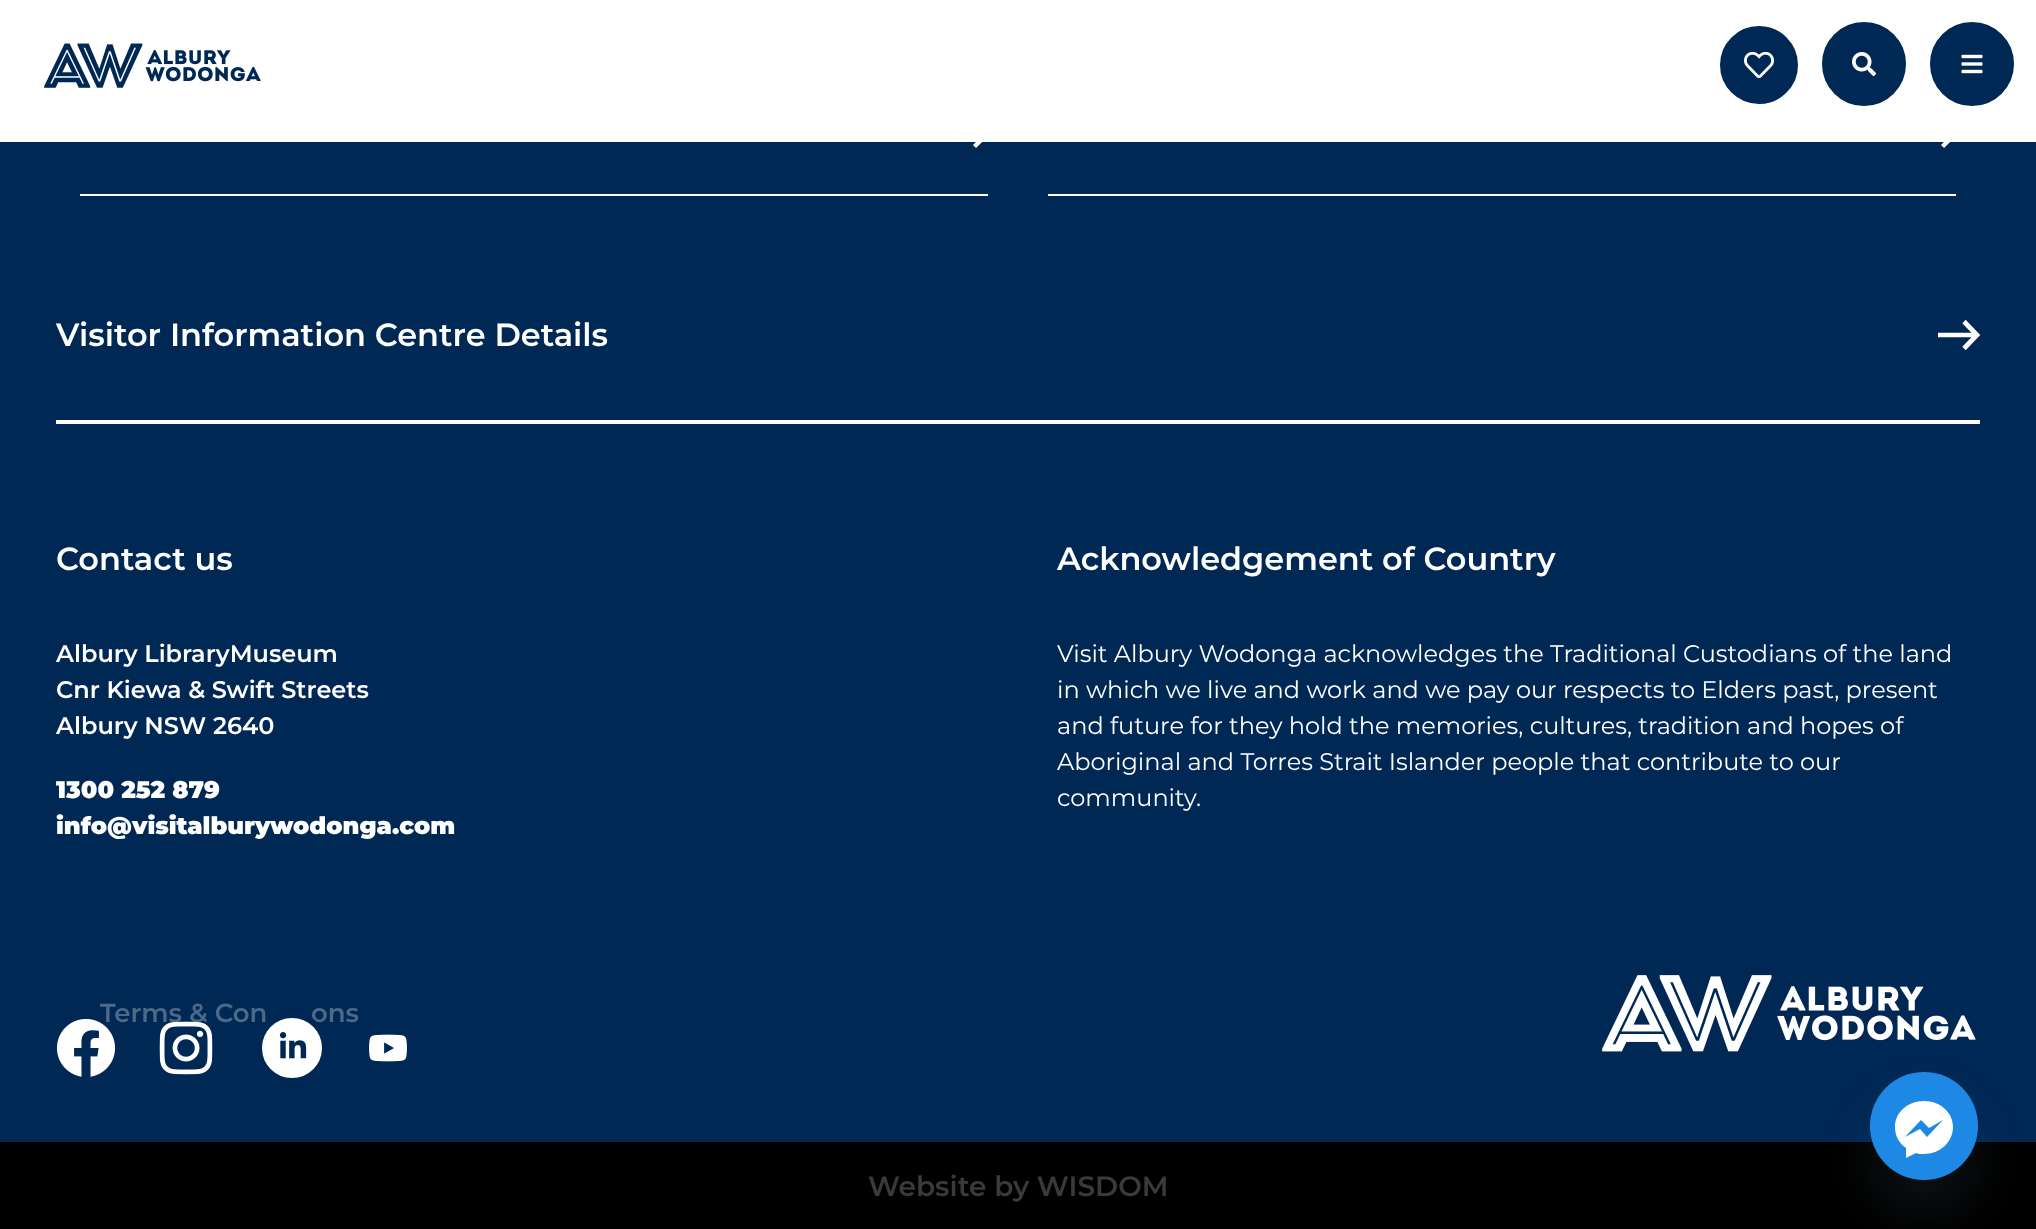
<svg xmlns="http://www.w3.org/2000/svg" xmlns:xlink="http://www.w3.org/1999/xlink" width="2036" height="1229" viewBox="0 0 2036 1229">
<style>
.cls-1{font:600 32px Montserrat;fill:#ffffff}
.cls-2{font:600 24px Montserrat;fill:#ffffff}
.cls-3{font:900 24px Montserrat;fill:#ffffff}
.cls-4{font:24px Montserrat;fill:#ffffff}
.cls-5{font:600 26px Montserrat;fill:#4d6988}
.cls-6{font:600 28px Montserrat;fill:#3a3a3a}
</style>
<rect width="100%" height="100%" fill="#002855"/>
<path fill="none" stroke="#ffffff" stroke-width="4.4" d="M974.5 146.5L987 134L974.5 121.5"/>
<path fill="none" stroke="#ffffff" stroke-width="4.4" d="M1942.5 146.5L1955 134L1942.5 121.5"/>
<rect fill="#ffffff" x="0" y="0" width="2036" height="142"/>
<image xlink:href="image0.png" x="44" y="43" width="217" height="45"/>
<circle fill="#002855" stroke="#ffffff" stroke-width="2" cx="1759" cy="65" r="40"/>
<image xlink:href="image1.png" x="1744" y="51" width="30" height="28"/>
<circle fill="#002855" stroke="#ffffff" stroke-width="2" cx="1864" cy="64" r="43"/>
<image xlink:href="image2.png" x="1852" y="52" width="24" height="24"/>
<circle fill="#002855" stroke="#ffffff" stroke-width="2" cx="1972" cy="64" r="43"/>
<image xlink:href="image3.png" x="1961" y="54" width="22" height="20"/>
<rect fill="#ffffff" x="80" y="194" width="908" height="2"/>
<rect fill="#ffffff" x="1048" y="194" width="908" height="2"/>
<rect fill="#ffffff" x="56" y="420" width="1924" height="4"/>
<path fill="none" stroke="#ffffff" stroke-width="4.7" d="M1938 335H1976M1964 348.5L1977 335L1964 321.5"/>
<image xlink:href="image7.png" x="369" y="1034" width="38" height="28"/>
<image xlink:href="image8.png" x="1602" y="975" width="374" height="77"/>
<rect fill="#000000" x="0" y="1142" width="2036" height="87"/>
<rect fill="#49687e" fill-opacity="0.16" filter="blur(24px)" x="1870" y="1104" width="108" height="108" rx="54"/>
<circle fill="#1e88e5" cx="1924" cy="1126" r="54"/>
<path fill="#ffffff" fill-rule="evenodd" d="M1895 1127C1895 1112 1908 1101 1924 1101C1940 1101 1953 1112 1953 1127C1953 1142 1940 1154 1924 1154C1921 1154 1918 1154 1916 1153L1906 1158V1148C1899 1143 1895 1136 1895 1127ZM1920 1129L1927 1137L1943 1120L1929 1128L1921 1120L1905 1137Z"/>
<text class="cls-1" x="56" y="346">Visitor Information Centre Details</text>
<text class="cls-1" x="56" y="570">Contact us</text>
<text class="cls-2"><tspan x="56" y="662">Albury LibraryMuseum</tspan><tspan x="56" y="698">Cnr Kiewa &amp; Swift Streets</tspan><tspan x="56" y="734">Albury NSW 2640</tspan></text>
<text class="cls-3"><tspan x="56" y="798">1300 252 879</tspan><tspan x="56" y="834">info@visitalburywodonga.com</tspan></text>
<text class="cls-1" x="1057" y="570">Acknowledgement of Country</text>
<text class="cls-4"><tspan x="1057" y="662">Visit Albury Wodonga acknowledges the Traditional Custodians of the land</tspan><tspan x="1057" y="698">in which we live and work and we pay our respects to Elders past, present</tspan><tspan x="1057" y="734">and future for they hold the memories, cultures, tradition and hopes of</tspan><tspan x="1057" y="770">Aboriginal and Torres Strait Islander people that contribute to our</tspan><tspan x="1057" y="806">community.</tspan></text>
<text class="cls-5" x="100" y="1022">Terms &amp; Con</text>
<image xlink:href="image5.png" x="159" y="1021" width="54" height="54"/>
<image xlink:href="image4.png" x="56" y="1018" width="60" height="59"/>
<text class="cls-5" x="311" y="1022">ons</text>
<circle fill="#ffffff" stroke="#002855" stroke-width="6" cx="292" cy="1048" r="33"/>
<image xlink:href="image6.png" x="279" y="1032" width="28" height="27"/>
<text class="cls-6" x="868" y="1196">Website by WISDOM</text>
</svg>
